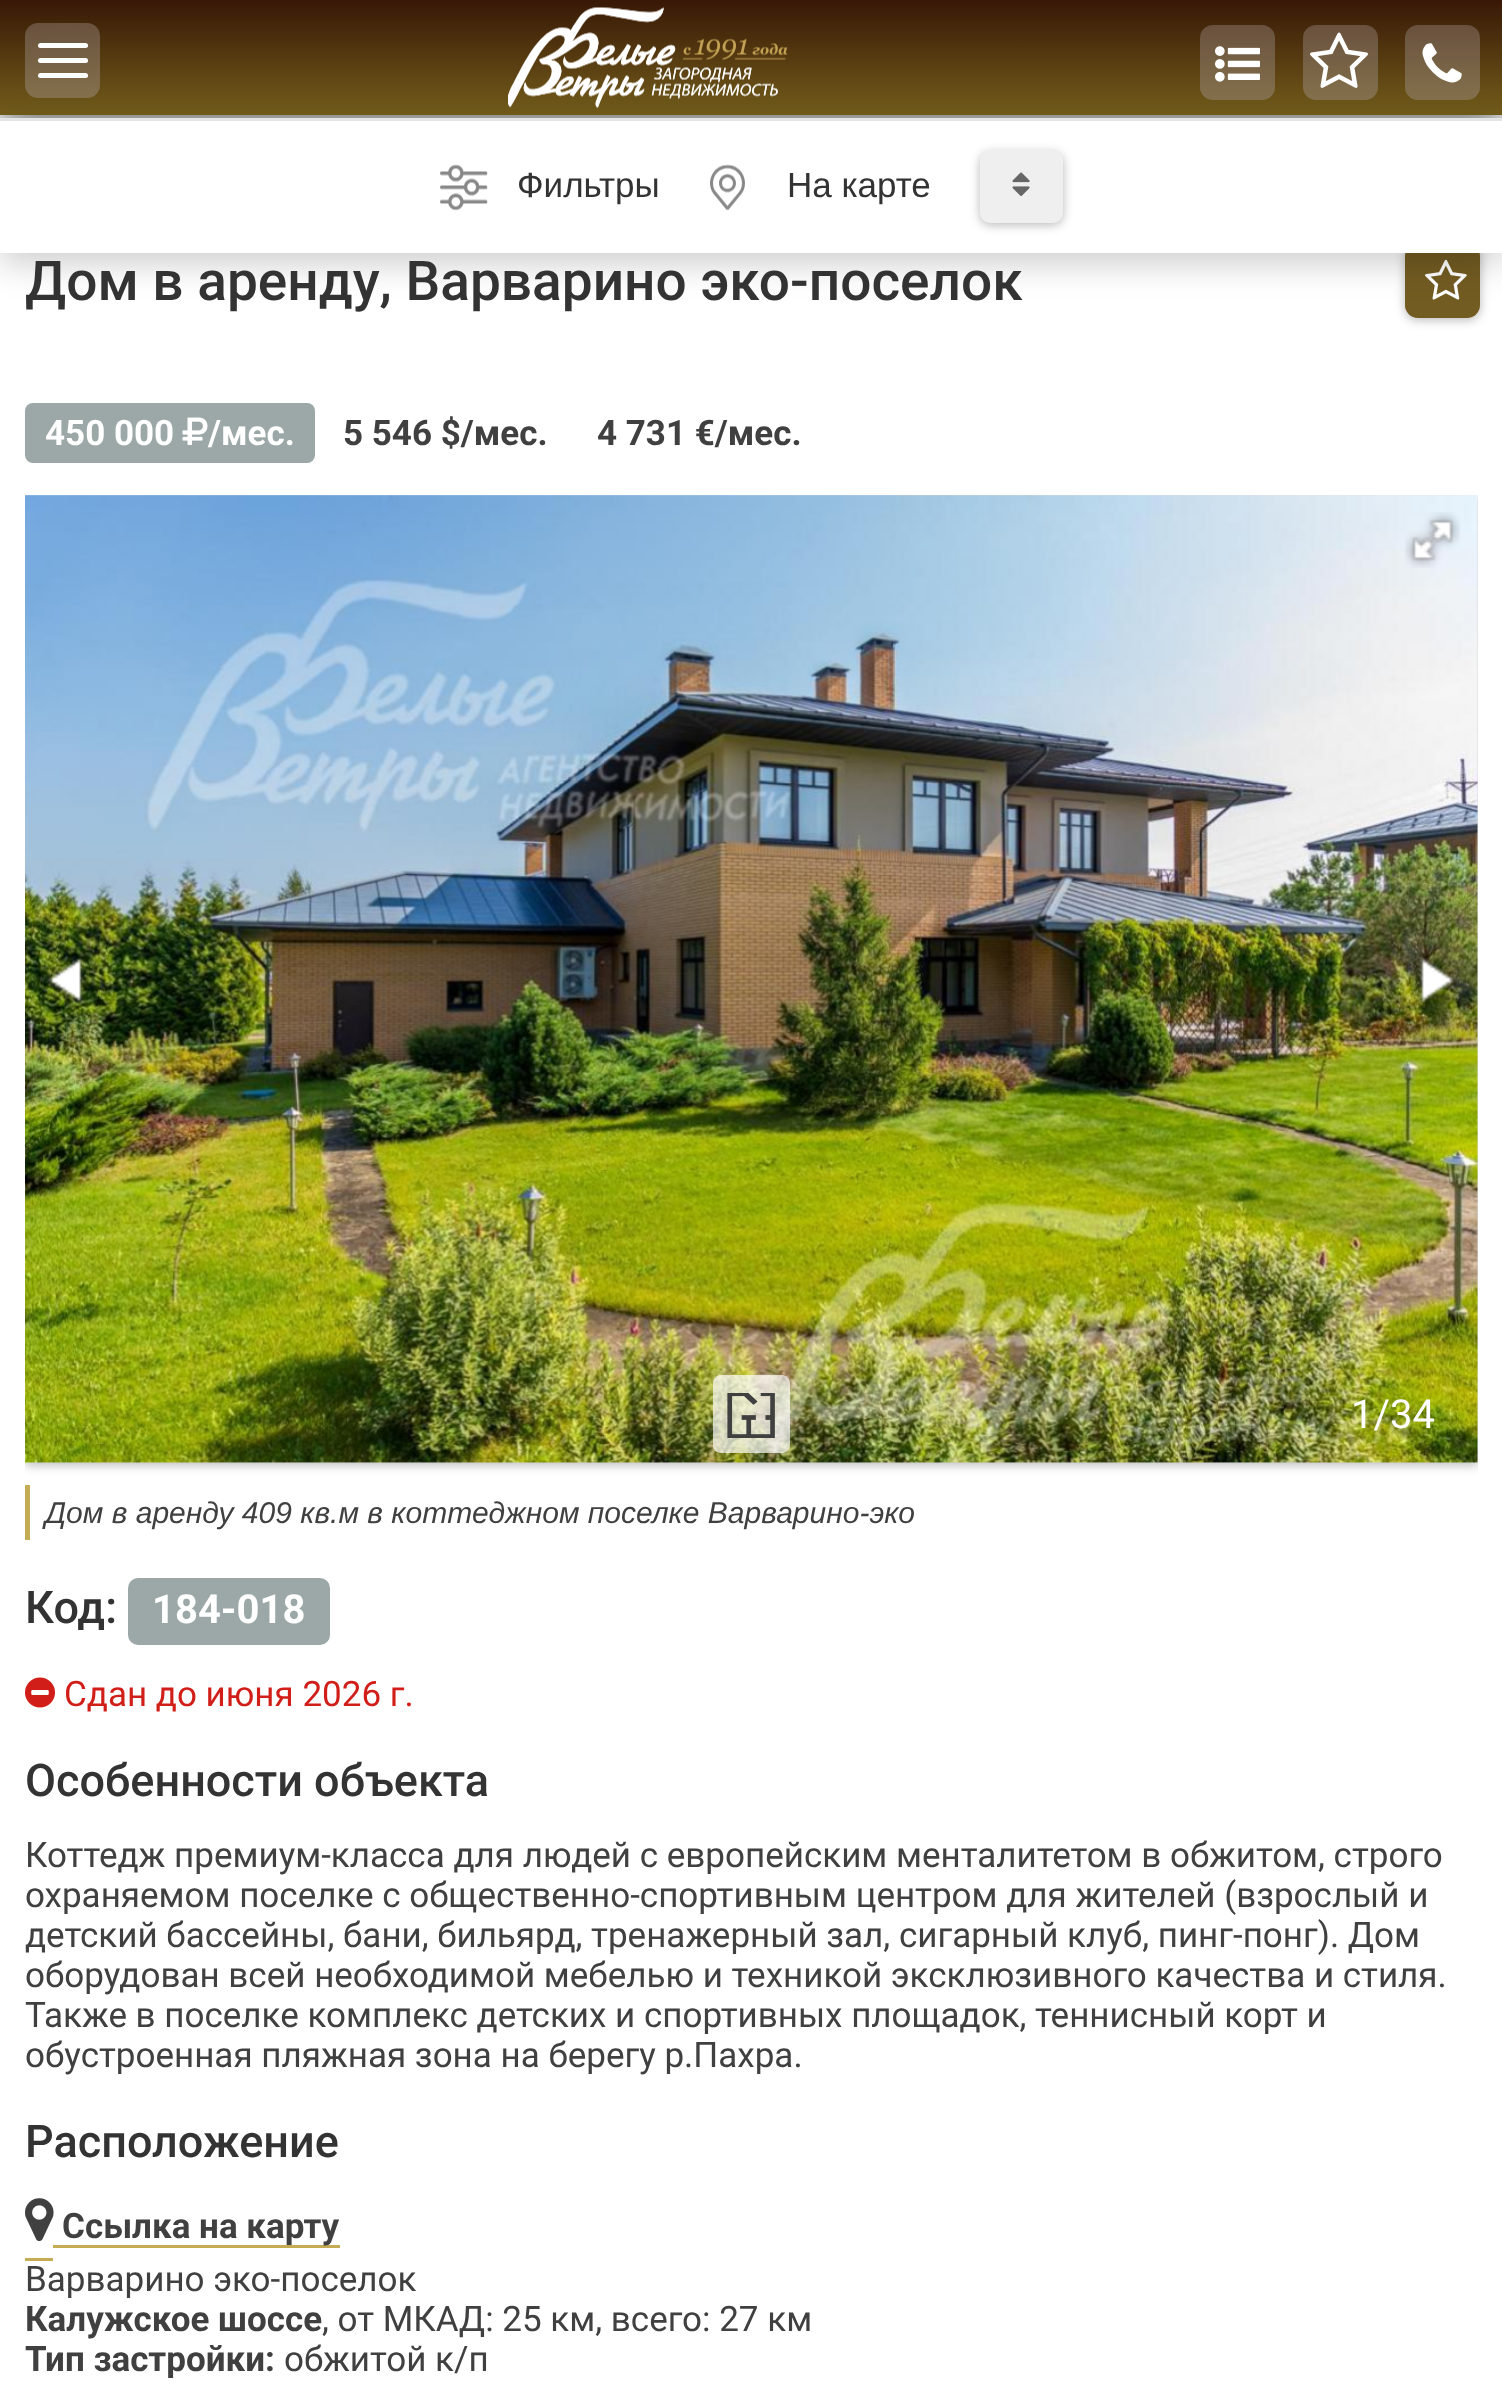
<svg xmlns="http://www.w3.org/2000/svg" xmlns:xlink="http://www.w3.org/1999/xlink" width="1502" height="2388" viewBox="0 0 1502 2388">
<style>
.cls-1{font:35px Liberation Sans;fill:#333333}
.cls-2{font:500 55px Roboto;fill:#333333}
.cls-3{font:bold 35px Roboto;fill:#ffffff}
.cls-4{font:bold 35px Roboto;fill:#404040}
.cls-5{font:40px Roboto;fill:#ffffff}
.cls-6{font:italic 30px Liberation Sans;fill:#404040}
.cls-7{font:500 45px Roboto;fill:#333333}
.cls-8{font:bold 40px Roboto;fill:#ffffff}
.cls-9{font:35px Roboto;fill:#d11e18}
.cls-10{font:35px Roboto;fill:#404040}
</style>
<defs>
<linearGradient id="g1" gradientUnits="userSpaceOnUse" x1="751" y1="0" x2="751" y2="115"><stop offset="0" stop-color="#381806"/><stop offset="1" stop-color="#735d1b"/></linearGradient>
<linearGradient id="g2" gradientUnits="userSpaceOnUse" x1="62" y1="22" x2="63" y2="98"><stop offset="0" stop-color="#69513e"/><stop offset="1" stop-color="#84714c"/></linearGradient>
<linearGradient id="g3" gradientUnits="userSpaceOnUse" x1="1238" y1="25" x2="1238" y2="100"><stop offset="0" stop-color="#69513e"/><stop offset="1" stop-color="#84714c"/></linearGradient>
<linearGradient id="g4" gradientUnits="userSpaceOnUse" x1="1340" y1="25" x2="1340" y2="100"><stop offset="0" stop-color="#69513e"/><stop offset="1" stop-color="#84714c"/></linearGradient>
<linearGradient id="g5" gradientUnits="userSpaceOnUse" x1="1443" y1="25" x2="1443" y2="100"><stop offset="0" stop-color="#69513e"/><stop offset="1" stop-color="#84714c"/></linearGradient>
<clipPath id="clip1"><rect x="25" y="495" width="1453" height="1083"/></clipPath>
</defs>
<rect width="100%" height="100%" fill="#ffffff"/>
<rect fill="#000000" fill-opacity="0.5" filter="blur(19px)" x="0" y="13" width="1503" height="115"/>
<rect fill="url(#g1)" x="0" y="0" width="1502" height="115"/>
<rect fill="url(#g2)" x="25" y="23" width="75" height="75" rx="13"/>
<rect fill="#ffffff" x="38" y="43" width="50" height="5" rx="2.5"/>
<rect fill="#ffffff" x="38" y="58" width="50" height="5" rx="2.5"/>
<rect fill="#ffffff" x="38" y="73" width="50" height="5" rx="2.5"/>
<image xlink:href="image0.png" x="508" y="7" width="279" height="101"/>
<rect fill="url(#g3)" x="1200" y="25" width="75" height="75" rx="13"/>
<image xlink:href="image1.png" x="1215" y="46" width="45" height="36"/>
<rect fill="url(#g4)" x="1303" y="25" width="75" height="75" rx="13"/>
<image xlink:href="image2.png" x="1310" y="32" width="58" height="56"/>
<rect fill="url(#g5)" x="1405" y="25" width="75" height="75" rx="13"/>
<image xlink:href="image3.png" x="1422" y="43" width="40" height="40"/>
<rect fill="#000000" fill-opacity="0.18" filter="blur(5px)" x="1405" y="245" width="75" height="75" rx="13"/>
<rect fill="#000000" fill-opacity="0.1" filter="blur(6px)" x="1405" y="245" width="75" height="75" rx="13"/>
<rect fill="#735c22" x="1405" y="243" width="75" height="75" rx="13"/>
<image xlink:href="image7.png" x="1425" y="259" width="42" height="41"/>
<rect fill="#000000" fill-opacity="0.2" filter="blur(17.5px)" x="0" y="128" width="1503" height="135"/>
<rect fill="#ffffff" x="0" y="121" width="1502" height="132"/>
<rect fill="#e5e5e5" x="0" y="118" width="1502" height="3"/>
<image xlink:href="image4.png" x="440" y="164" width="48" height="47"/>
<image xlink:href="image5.png" x="710" y="164" width="35" height="47"/>
<rect fill="#000000" fill-opacity="0.18" filter="blur(5px)" x="980" y="153" width="83" height="72" rx="10"/>
<rect fill="#000000" fill-opacity="0.1" filter="blur(6px)" x="980" y="153" width="83" height="72" rx="10"/>
<rect fill="#efefef" x="980" y="150" width="83" height="73" rx="10"/>
<image xlink:href="image6.png" x="1012" y="172" width="18" height="24"/>
<rect fill="#9ca7a7" x="25" y="403" width="290" height="60" rx="8"/>
<image xlink:href="image8.png" x="182" y="417" width="26" height="28"/>
<g clip-path="url(#clip1)">
<rect fill="#000000" fill-opacity="0.18" filter="blur(5px)" x="25" y="498" width="1453" height="967"/>
<rect fill="#000000" fill-opacity="0.1" filter="blur(6px)" x="25" y="498" width="1453" height="967"/>
</g>
<image xlink:href="image13.png" x="25" y="495" width="1453" height="968"/>
<image xlink:href="image9.png" x="713" y="1375" width="77" height="78"/>
<image xlink:href="image10.png" x="1405" y="512" width="55" height="56"/>
<image xlink:href="image11.png" x="47" y="957" width="44" height="48"/>
<image xlink:href="image12.png" x="1412" y="956" width="44" height="48"/>
<rect fill="#c4ac54" x="25" y="1485" width="5" height="55"/>
<rect fill="#9ca7a7" x="128" y="1578" width="202" height="67" rx="10"/>
<image xlink:href="image14.png" x="25" y="1677" width="30" height="31"/>
<rect fill="#c4ac54" x="25" y="2258" width="28" height="3"/>
<rect fill="#c4ac54" x="53" y="2245" width="287" height="3"/>
<image xlink:href="image15.png" x="25" y="2198" width="29" height="44"/>
<text class="cls-1" x="517" y="197">Фильтры</text>
<text class="cls-1" x="787" y="197">На карте</text>
<text class="cls-2" x="25" y="300">Дом в аренду, Варварино эко-поселок</text>
<text class="cls-3" x="45" y="445">450 000</text>
<text class="cls-3" x="208" y="445">/мес.</text>
<text class="cls-4" x="343" y="445">5 546 $/мес.</text>
<text class="cls-4" x="597" y="445">4 731 €/мес.</text>
<text class="cls-5" x="1351" y="1428">1/34</text>
<text class="cls-6" x="45" y="1523">Дом в аренду 409 кв.м в коттеджном поселке Варварино-эко</text>
<text class="cls-7" x="25" y="1623">Код:</text>
<text class="cls-8" x="152" y="1623">184-018</text>
<text class="cls-9" x="64" y="1706">Сдан до июня 2026 г.</text>
<text class="cls-7" x="25" y="1796">Особенности объекта</text>
<text class="cls-10"><tspan x="25" y="1867">Коттедж премиум-класса для людей с европейским менталитетом в обжитом, строго</tspan><tspan x="25" y="1907">охраняемом поселке с общественно-спортивным центром для жителей (взрослый и</tspan><tspan x="25" y="1947">детский бассейны, бани, бильярд, тренажерный зал, сигарный клуб, пинг-понг). Дом</tspan><tspan x="25" y="1987">оборудован всей необходимой мебелью и техникой эксклюзивного качества и стиля.</tspan><tspan x="25" y="2027">Также в поселке комплекс детских и спортивных площадок, теннисный корт и</tspan><tspan x="25" y="2067">обустроенная пляжная зона на берегу р.Пахра.</tspan></text>
<text class="cls-7" x="25" y="2157">Расположение</text>
<text class="cls-4" x="62" y="2238">Ссылка на карту</text>
<text class="cls-10" x="25" y="2291">Варварино эко-поселок</text>
<text class="cls-4" x="25" y="2331">Калужское шоссе</text>
<text class="cls-10" x="322" y="2331">, от МКАД: 25 км, всего: 27 км</text>
<text class="cls-4" x="25" y="2371">Тип застройки:</text>
<text class="cls-10" x="284" y="2371">обжитой к/п</text>
</svg>
